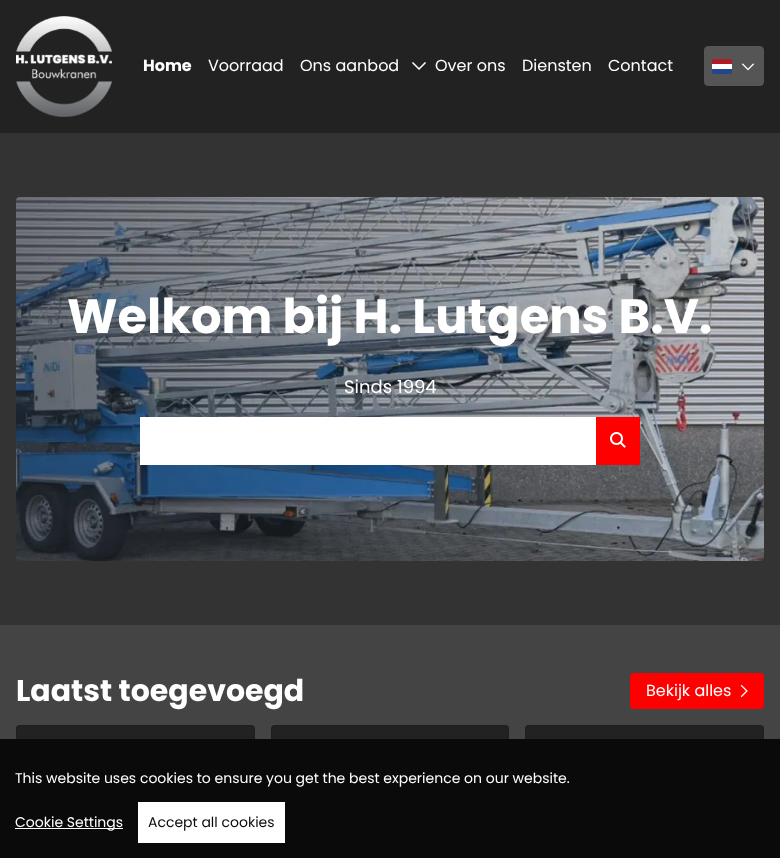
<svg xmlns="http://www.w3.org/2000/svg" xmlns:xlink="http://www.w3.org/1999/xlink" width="780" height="858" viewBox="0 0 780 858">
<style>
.cls-1{font:bold 16px Poppins;fill:#ffffff}
.cls-2{font:16px Poppins;fill:#ffffff}
.cls-3{font:bold 48px Poppins;fill:#ffffff}
.cls-4{font:18px Poppins;fill:#ffffff}
.cls-5{font:bold 30px Poppins;fill:#ffffff}
.cls-6{font:14px Poppins;fill:#ffffff}
.cls-7{font:14px Poppins;fill:#0a0a0a}
</style>
<rect width="100%" height="100%" fill="#333333"/>
<rect fill="#222222" x="0" y="0" width="780" height="133"/>
<image xlink:href="image0.png" x="16" y="16" width="96" height="101"/>
<image xlink:href="image1.png" x="412" y="62" width="14" height="8"/>
<rect fill="#555555" stroke="#555555" x="704.5" y="46.5" width="59" height="39" rx="3.5"/>
<image xlink:href="image2.png" x="712" y="59" width="20" height="15"/>
<image xlink:href="image3.png" x="741" y="63" width="14" height="8"/>
<image xlink:href="image4.png" x="16" y="197" width="748" height="364"/>
<rect fill="#ffffff" x="140" y="417" width="456" height="48"/>
<rect fill="#ff0000" x="596" y="417" width="44" height="48"/>
<image xlink:href="image5.png" x="610" y="432" width="16" height="16"/>
<rect fill="#444444" x="0" y="625" width="780" height="114"/>
<rect fill="#ff0000" x="630" y="673" width="134" height="36" rx="4"/>
<image xlink:href="image6.png" x="740" y="684" width="8" height="14"/>
<rect fill="#222222" x="16" y="725" width="239" height="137" rx="4"/>
<rect fill="none" stroke="#000000" stroke-opacity="0.1" x="16.5" y="725.5" width="238" height="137" rx="3.5"/>
<rect fill="#222222" x="271" y="725" width="238" height="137" rx="4"/>
<rect fill="none" stroke="#000000" stroke-opacity="0.1" x="271.5" y="725.5" width="237" height="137" rx="3.5"/>
<rect fill="#222222" x="525" y="725" width="239" height="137" rx="4"/>
<rect fill="none" stroke="#000000" stroke-opacity="0.1" x="525.5" y="725.5" width="238" height="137" rx="3.5"/>
<rect fill="#0a0a0a" x="0" y="739" width="780" height="119"/>
<rect fill="#ffffff" x="15" y="828" width="108" height="1"/>
<rect fill="#ffffff" x="138" y="802" width="147" height="41"/>
<text class="cls-1" x="143" y="71">Home</text>
<text class="cls-2" x="208" y="71">Voorraad</text>
<text class="cls-2" x="300" y="71">Ons aanbod</text>
<text class="cls-2" x="435" y="71">Over ons</text>
<text class="cls-2" x="522" y="71">Diensten</text>
<text class="cls-2" x="608" y="71">Contact</text>
<text class="cls-3" x="67" y="333">Welkom bij H. Lutgens B.V.</text>
<text class="cls-4" x="344" y="393">Sinds 1994</text>
<text class="cls-5" x="16" y="701">Laatst toegevoegd</text>
<text class="cls-2" x="646" y="696">Bekijk alles</text>
<text class="cls-6" x="15" y="783">This website uses cookies to ensure you get the best experience on our website.</text>
<text class="cls-6" x="15" y="827">Cookie Settings</text>
<text class="cls-7" x="148" y="827">Accept all cookies</text>
</svg>
